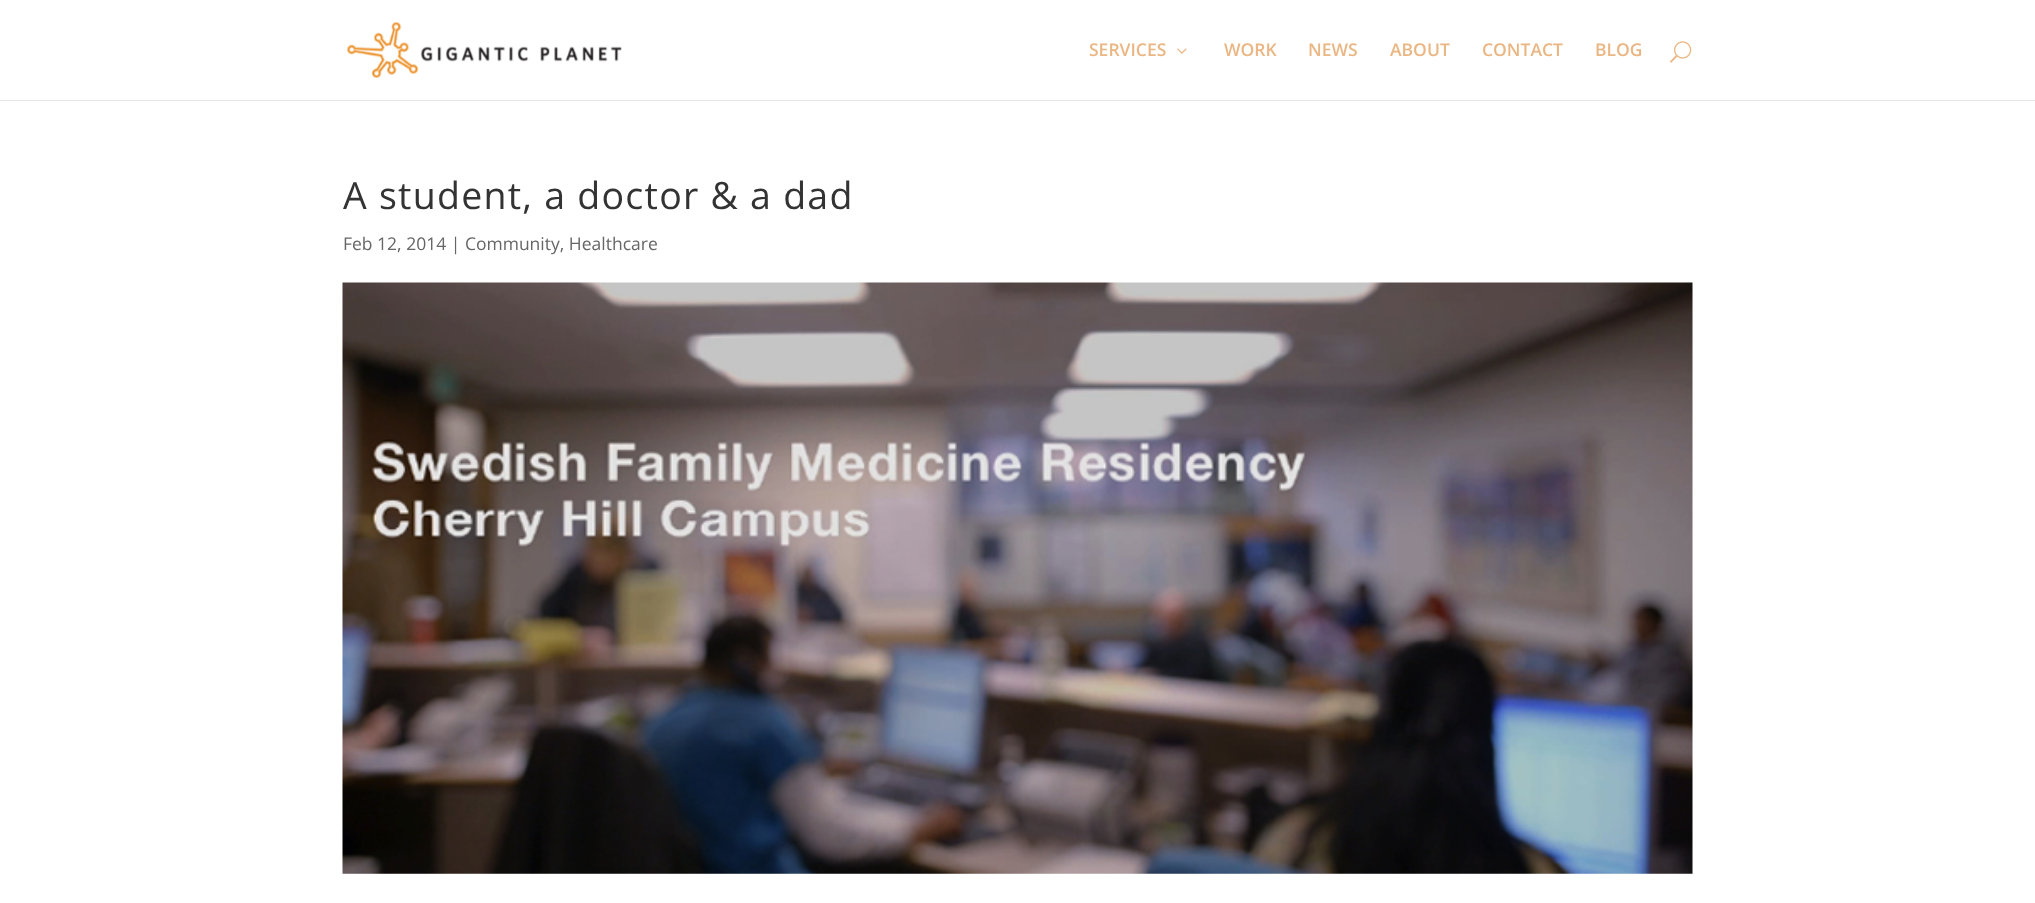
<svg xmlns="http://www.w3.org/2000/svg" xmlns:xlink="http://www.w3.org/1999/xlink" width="2035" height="903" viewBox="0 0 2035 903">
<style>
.cls-1{font:600 17.5px Open Sans;fill:#eab683}
.cls-2{font:37.5px Open Sans;letter-spacing:1.25px;fill:#333333}
.cls-3{font:17.5px Open Sans;fill:#666666}
</style>
<rect width="100%" height="100%" fill="#ffffff"/>
<rect fill="#e6e6e6" x="0" y="100" width="2035" height="1"/>
<image xlink:href="image0.png" x="347" y="22" width="275" height="56"/>
<image xlink:href="image1.png" x="1177" y="48" width="10" height="6"/>
<image xlink:href="image2.png" x="1670" y="41" width="22" height="22"/>
<image xlink:href="image3.png" x="342" y="282" width="1351" height="592"/>
<text class="cls-1" x="1089" y="56">SERVICES</text>
<text class="cls-1" x="1224" y="56">WORK</text>
<text class="cls-1" x="1308" y="56">NEWS</text>
<text class="cls-1" x="1390" y="56">ABOUT</text>
<text class="cls-1" x="1482" y="56">CONTACT</text>
<text class="cls-1" x="1595" y="56">BLOG</text>
<text class="cls-2" x="343" y="209">A student, a doctor &amp; a dad</text>
<text class="cls-3" x="343" y="250">Feb 12, 2014 | Community, Healthcare</text>
</svg>
